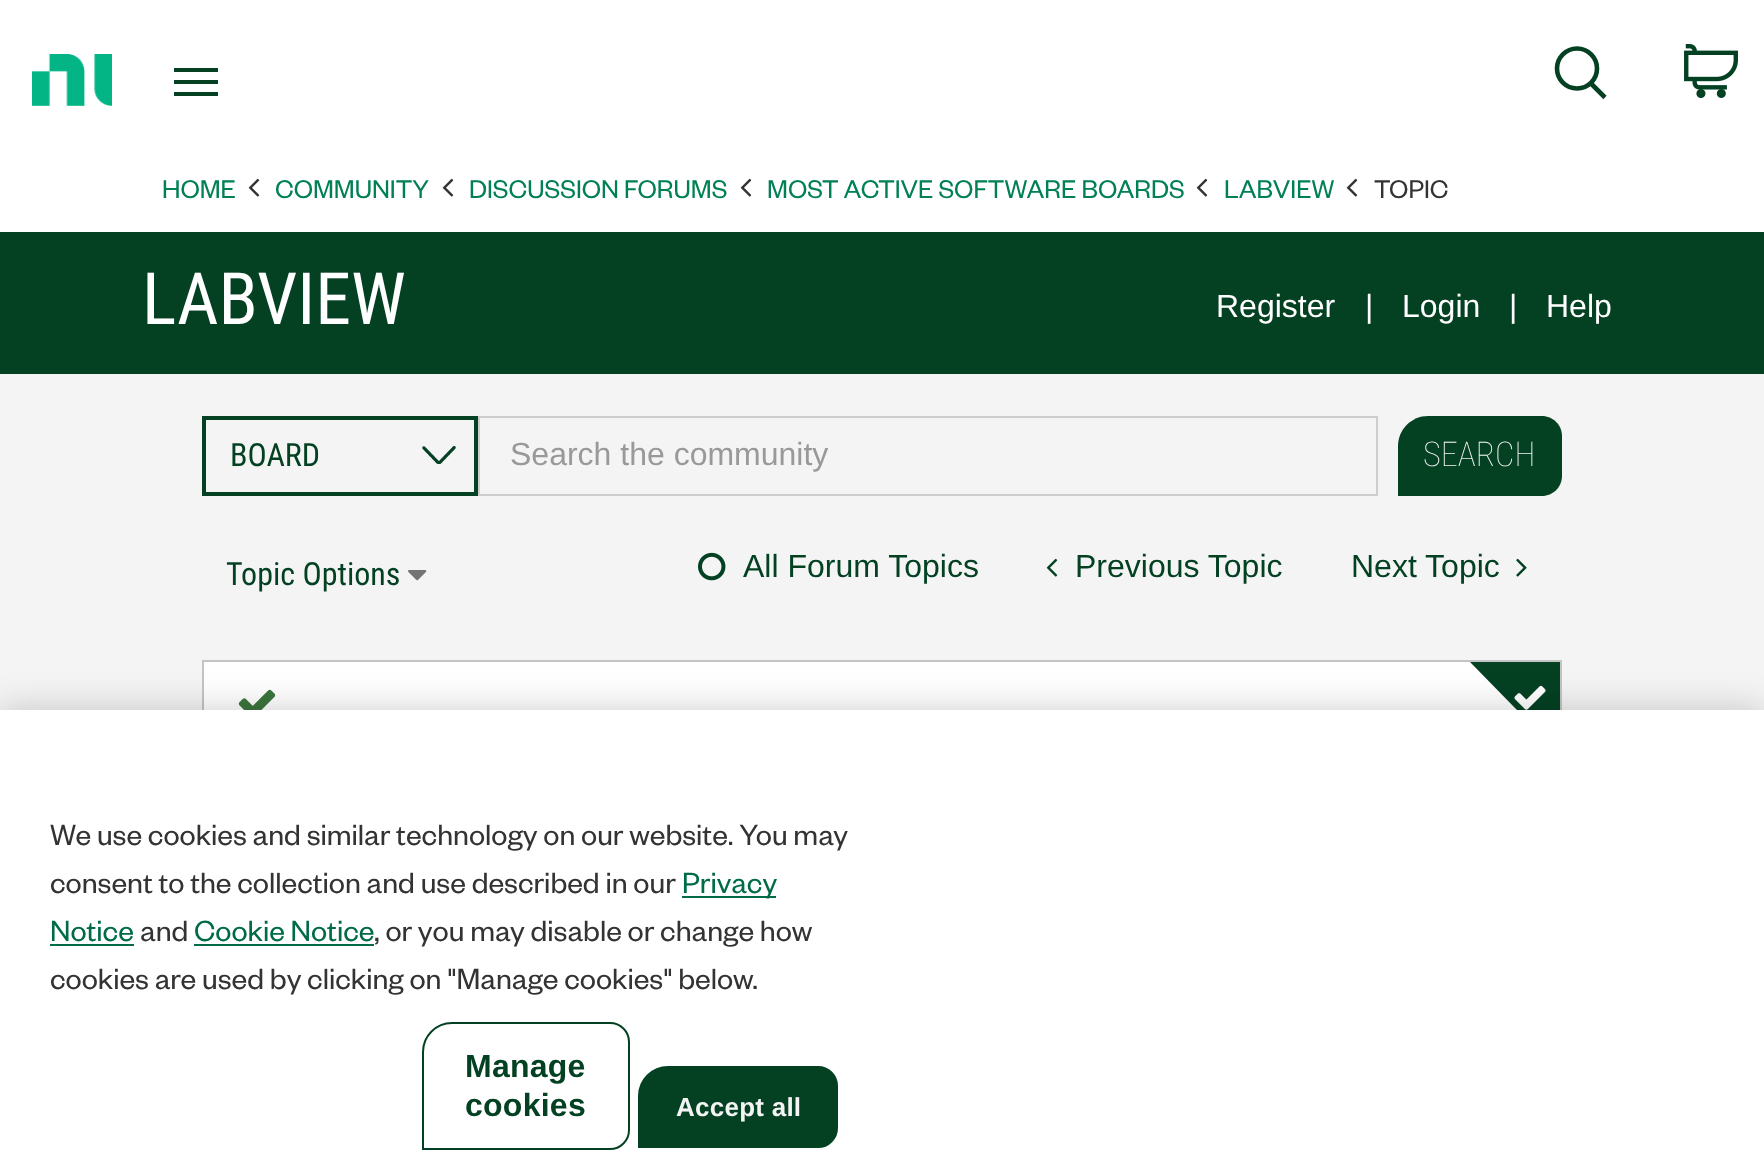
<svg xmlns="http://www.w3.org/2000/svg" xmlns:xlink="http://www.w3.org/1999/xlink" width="1764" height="1169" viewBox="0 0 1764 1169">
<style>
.cls-1{font:28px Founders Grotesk;fill:#008053}
.cls-2{font:28px Founders Grotesk;fill:#333333}
.cls-3{font:72px Roboto Condensed;fill:#ffffff}
.cls-4{font:32px Liberation Sans;fill:#ffffff}
.cls-5{font:32px Roboto Condensed;fill:#044123}
.cls-6{font:32px Liberation Sans;fill:#999999}
.cls-7{font:100 34px Roboto Condensed;fill:#f4f4f4}
.cls-8{font:32px Liberation Sans;fill:#044123}
.cls-9{font:32px Founders Grotesk;fill:#333333}
.cls-10{font:32px Founders Grotesk;fill:#006b46}
.cls-11{font:bold 32px Liberation Sans;letter-spacing:0.25px;fill:#044123}
.cls-12{font:bold 26px Liberation Sans;letter-spacing:0.25px;fill:#f4f4f4}
</style>
<rect width="100%" height="100%" fill="#f4f4f4"/>
<rect fill="#ffffff" x="0" y="0" width="1764" height="232"/>
<image xlink:href="image0.png" x="32" y="54" width="80" height="52"/>
<rect fill="#044123" x="174" y="68" width="44" height="4"/>
<rect fill="#044123" x="174" y="80" width="44" height="4"/>
<rect fill="#044123" x="174" y="92" width="44" height="4"/>
<circle fill="none" stroke="#044123" stroke-width="4.6" cx="1577" cy="68.5" r="20"/>
<path fill="none" stroke="#044123" stroke-width="4.6" d="M1591 83.5L1605 97.5"/>
<image xlink:href="image1.png" x="1684" y="44" width="54" height="54"/>
<image xlink:href="image2.png" x="248" y="178" width="12" height="19"/>
<image xlink:href="image2.png" x="442" y="178" width="12" height="19"/>
<image xlink:href="image2.png" x="740" y="178" width="12" height="19"/>
<image xlink:href="image2.png" x="1196" y="178" width="12" height="19"/>
<image xlink:href="image2.png" x="1346" y="178" width="12" height="19"/>
<rect fill="#044123" x="0" y="232" width="1764" height="142"/>
<image xlink:href="image3.png" x="422" y="446" width="34" height="18"/>
<rect fill="#044123" x="202" y="416" width="278" height="4"/>
<rect fill="#044123" x="474" y="416" width="4" height="80"/>
<rect fill="#044123" x="202" y="492" width="278" height="4"/>
<rect fill="#044123" x="202" y="416" width="4" height="80"/>
<rect fill="none" stroke="#cdcdcd" stroke-width="2" x="479" y="417" width="898" height="78"/>
<path fill="#044123" d="M1428 416H1542C1553 416 1562 425 1562 436V476C1562 487 1553 496 1542 496H1398V446C1398 429.5 1411.5 416 1428 416Z"/>
<image xlink:href="image4.png" x="408" y="570" width="19" height="11"/>
<image xlink:href="image5.png" x="698" y="552" width="28" height="29"/>
<image xlink:href="image6.png" x="1046" y="558" width="12" height="19"/>
<image xlink:href="image7.png" x="1516" y="558" width="11" height="19"/>
<rect fill="#ffffff" x="204" y="662" width="1313" height="48"/>
<rect fill="none" stroke="#c4c4c4" stroke-width="2" x="203" y="661" width="1358" height="104"/>
<image xlink:href="image8.png" x="238" y="689" width="38" height="21"/>
<path fill="#044123" d="M1470 662H1560V754Z"/>
<image xlink:href="image9.png" x="1514" y="685" width="32" height="25"/>
<rect fill="#000000" fill-opacity="0.2" filter="blur(18px)" x="0" y="710" width="1764" height="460"/>
<rect fill="#ffffff" x="0" y="710" width="1764" height="459"/>
<rect fill="#006b46" x="682" y="896" width="94" height="2"/>
<rect fill="#006b46" x="50" y="944" width="84" height="2"/>
<rect fill="#006b46" x="194" y="944" width="180" height="2"/>
<path fill="none" stroke="#044123" stroke-width="2" d="M452 1023H610C620.5 1023 629 1031.5 629 1042V1130C629 1140.5 620.5 1149 610 1149H423V1052C423 1036 436 1023 452 1023Z"/>
<path fill="#044123" stroke="#044123" stroke-width="2" d="M668 1067H818C828.5 1067 837 1075.5 837 1086V1128C837 1138.5 828.5 1147 818 1147H639V1096C639 1080 652 1067 668 1067Z"/>
<text class="cls-1" x="162" y="198">HOME</text>
<text class="cls-1" x="275" y="198">COMMUNITY</text>
<text class="cls-1" x="469" y="198">DISCUSSION FORUMS</text>
<text class="cls-1" x="767" y="198">MOST ACTIVE SOFTWARE BOARDS</text>
<text class="cls-1" x="1224" y="198">LABVIEW</text>
<text class="cls-2" x="1374" y="198">TOPIC</text>
<text class="cls-3" x="142" y="324">LABVIEW</text>
<text class="cls-4" x="1216" y="317">Register</text>
<text class="cls-4" x="1365" y="317">|</text>
<text class="cls-4" x="1402" y="317">Login</text>
<text class="cls-4" x="1509" y="317">|</text>
<text class="cls-4" x="1546" y="317">Help</text>
<text class="cls-5" x="230" y="466">BOARD</text>
<text class="cls-6" x="510" y="465">Search the community</text>
<text class="cls-7" x="1423" y="466">SEARCH</text>
<text class="cls-5" x="226" y="585">Topic Options</text>
<text class="cls-8" x="743" y="577">All Forum Topics</text>
<text class="cls-8" x="1075" y="577">Previous Topic</text>
<text class="cls-8" x="1351" y="577">Next Topic</text>
<text class="cls-9"><tspan x="50" y="845">We use cookies and similar technology on our website. You may</tspan><tspan x="50" y="893">consent to the collection and use described in our</tspan></text>
<text class="cls-10" x="682" y="893">Privacy</text>
<text class="cls-10" x="50" y="941">Notice</text>
<text class="cls-9" x="140" y="941">and</text>
<text class="cls-10" x="194" y="941">Cookie Notice</text>
<text class="cls-9" x="374" y="941">, or you may disable or change how</text>
<text class="cls-9" x="50" y="989">cookies are used by clicking on "Manage cookies" below.</text>
<text class="cls-11"><tspan x="465" y="1077">Manage</tspan><tspan x="465" y="1116">cookies</tspan></text>
<text class="cls-12" x="676" y="1116">Accept all</text>
</svg>
